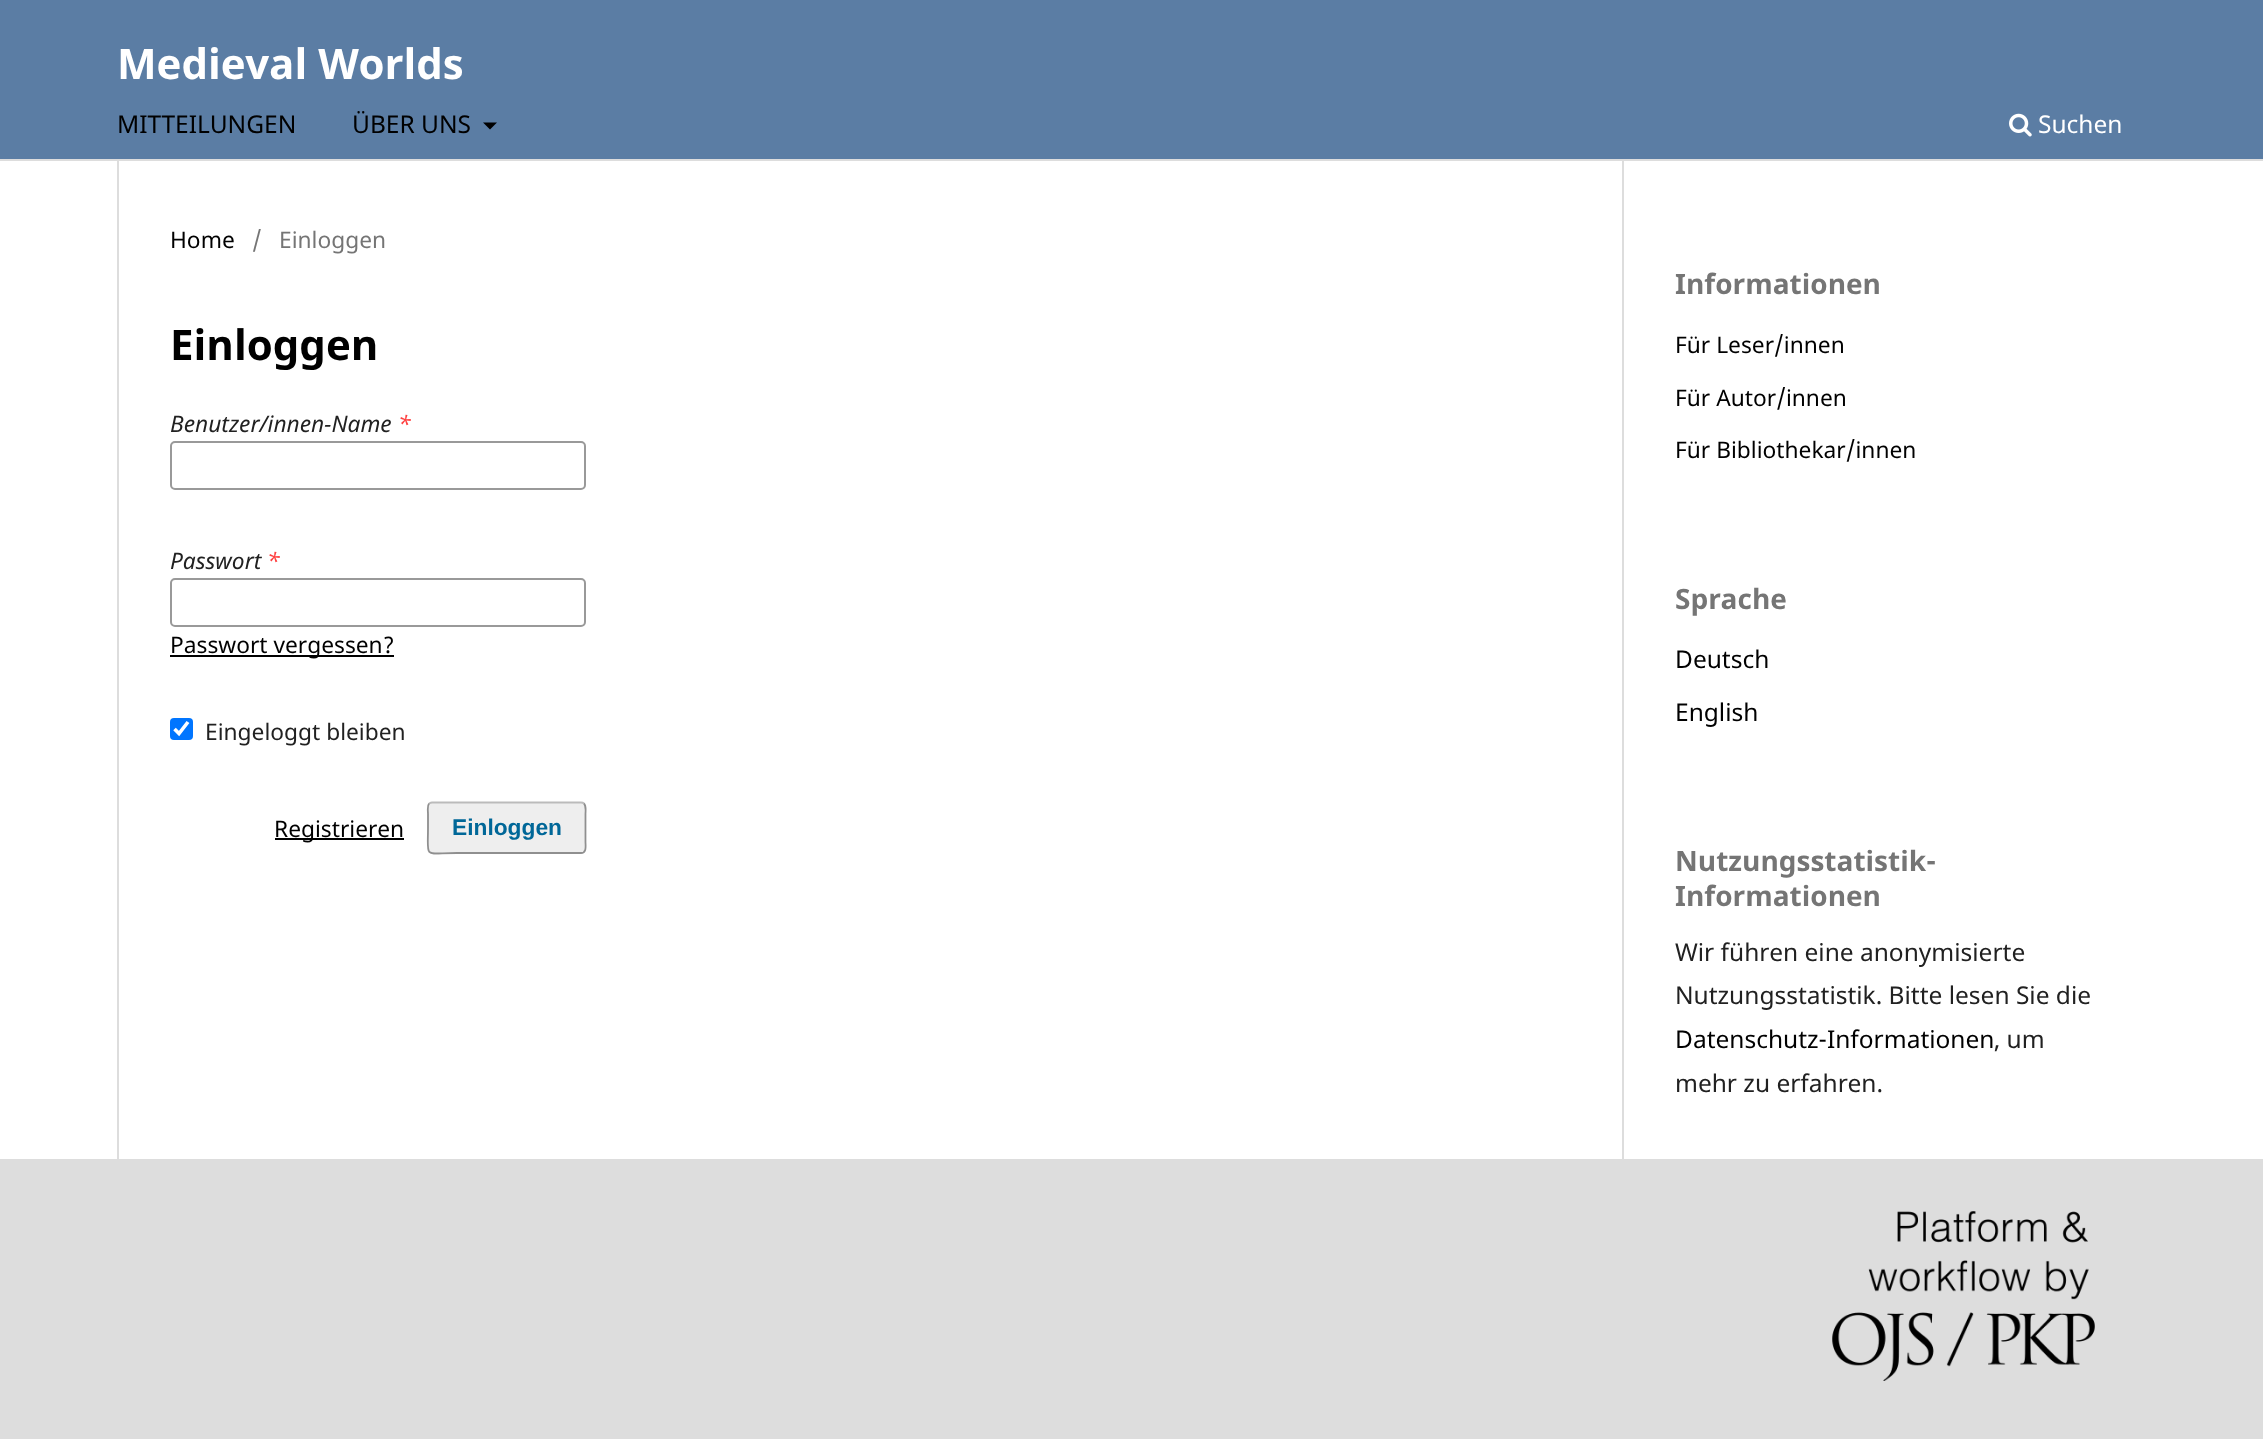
<svg xmlns="http://www.w3.org/2000/svg" xmlns:xlink="http://www.w3.org/1999/xlink" width="2263" height="1439" viewBox="0 0 2263 1439">
<style>
.cls-1{font:bold 42px Noto Sans;fill:#ffffff}
.cls-2{font:24.5px Noto Sans;fill:#000000}
.cls-3{font:24.5px Noto Sans;fill:#ffffff}
.cls-4{font:22.75px Noto Sans;fill:#000000}
.cls-5{font:22.75px Noto Sans;fill:#757575}
.cls-6{font:bold 42px Noto Sans;fill:#000000}
.cls-7{font:italic 22.75px Noto Sans;fill:#212121}
.cls-8{font:italic 22.75px Noto Sans;fill:#ff4040}
.cls-9{font:22.75px Noto Sans;fill:#212121}
.cls-10{font:bold 22.75px Liberation Sans;fill:#006798}
.cls-11{font:bold 28px Noto Sans;fill:#757575}
.cls-12{font:24.5px Noto Sans;fill:#212121}
</style>
<rect width="100%" height="100%" fill="#ffffff"/>
<rect fill="#5b7da4" x="0" y="0" width="2263" height="159"/>
<rect fill="#dddddd" x="0" y="159" width="2263" height="2"/>
<path fill="#000000" d="M483 122.5H497L490 129.5Z"/>
<image xlink:href="image0.png" x="2009" y="113" width="23" height="24"/>
<rect fill="#dddddd" x="117" y="161" width="2" height="998"/>
<rect fill="none" stroke="#999999" stroke-width="2" x="171" y="442" width="414" height="47" rx="4"/>
<rect fill="none" stroke="#999999" stroke-width="2" x="171" y="579" width="414" height="47" rx="4"/>
<rect fill="#000000" x="170" y="655" width="224" height="2"/>
<rect fill="#0075ff" x="170" y="718" width="23" height="22" rx="4"/>
<path fill="none" stroke="#ffffff" stroke-width="3.6" d="M174.5 729L179 733.5L188 722"/>
<rect fill="#000000" x="275" y="838" width="129" height="2"/>
<rect fill="#eeeeee" x="427" y="802" width="159" height="52" rx="5"/>
<path fill="none" stroke="#bbbbbb" stroke-width="1.8" d="M429 803.5C430 803 431 802.5 432 802.5H581C582 802.5 583.5 803 584 803.5"/>
<path fill="none" stroke="#000000" stroke-opacity="0.4" stroke-width="1.8" d="M584 803.5C586.5 806 585.5 811.5 585.5 814V842C585.5 845 587 853 581 853H457C423 853 428 859.5 428 828V814C428 811.5 427 806 429 803.5"/>
<rect fill="#dddddd" x="1622" y="161" width="2" height="998"/>
<rect fill="#dddddd" x="0" y="1159" width="2263" height="280"/>
<image xlink:href="image1.png" x="1832" y="1211" width="263" height="170"/>
<text class="cls-1" x="117" y="79">Medieval Worlds</text>
<text class="cls-2" x="117" y="133">MITTEILUNGEN</text>
<text class="cls-2" x="352" y="133">ÜBER UNS</text>
<text class="cls-3" x="2038" y="133">Suchen</text>
<text class="cls-4" x="170" y="248">Home</text>
<text class="cls-5" x="252" y="248">/</text>
<text class="cls-5" x="279" y="248">Einloggen</text>
<text class="cls-6" x="170" y="360">Einloggen</text>
<text class="cls-7" x="170" y="432">Benutzer/innen-Name</text>
<text class="cls-8" x="398" y="432">*</text>
<text class="cls-7" x="170" y="569">Passwort</text>
<text class="cls-8" x="267" y="569">*</text>
<text class="cls-4" x="170" y="653">Passwort vergessen?</text>
<text class="cls-9" x="205" y="740">Eingeloggt bleiben</text>
<text class="cls-4" x="274" y="837">Registrieren</text>
<text class="cls-10" x="452" y="835">Einloggen</text>
<text class="cls-11" x="1675" y="294">Informationen</text>
<text class="cls-4" x="1675" y="353">Für Leser/innen</text>
<text class="cls-4" x="1675" y="406">Für Autor/innen</text>
<text class="cls-4" x="1675" y="458">Für Bibliothekar/innen</text>
<text class="cls-11" x="1675" y="609">Sprache</text>
<text class="cls-2" x="1675" y="668">Deutsch</text>
<text class="cls-2" x="1675" y="721">English</text>
<text class="cls-11"><tspan x="1675" y="871">Nutzungsstatistik-</tspan><tspan x="1675" y="906">Informationen</tspan></text>
<text class="cls-12"><tspan x="1675" y="961">Wir führen eine anonymisierte</tspan><tspan x="1675" y="1004">Nutzungsstatistik. Bitte lesen Sie die</tspan></text>
<text class="cls-2" x="1675" y="1048">Datenschutz-Informationen</text>
<text class="cls-12" x="1994" y="1048">, um</text>
<text class="cls-12" x="1675" y="1092">mehr zu erfahren.</text>
</svg>
